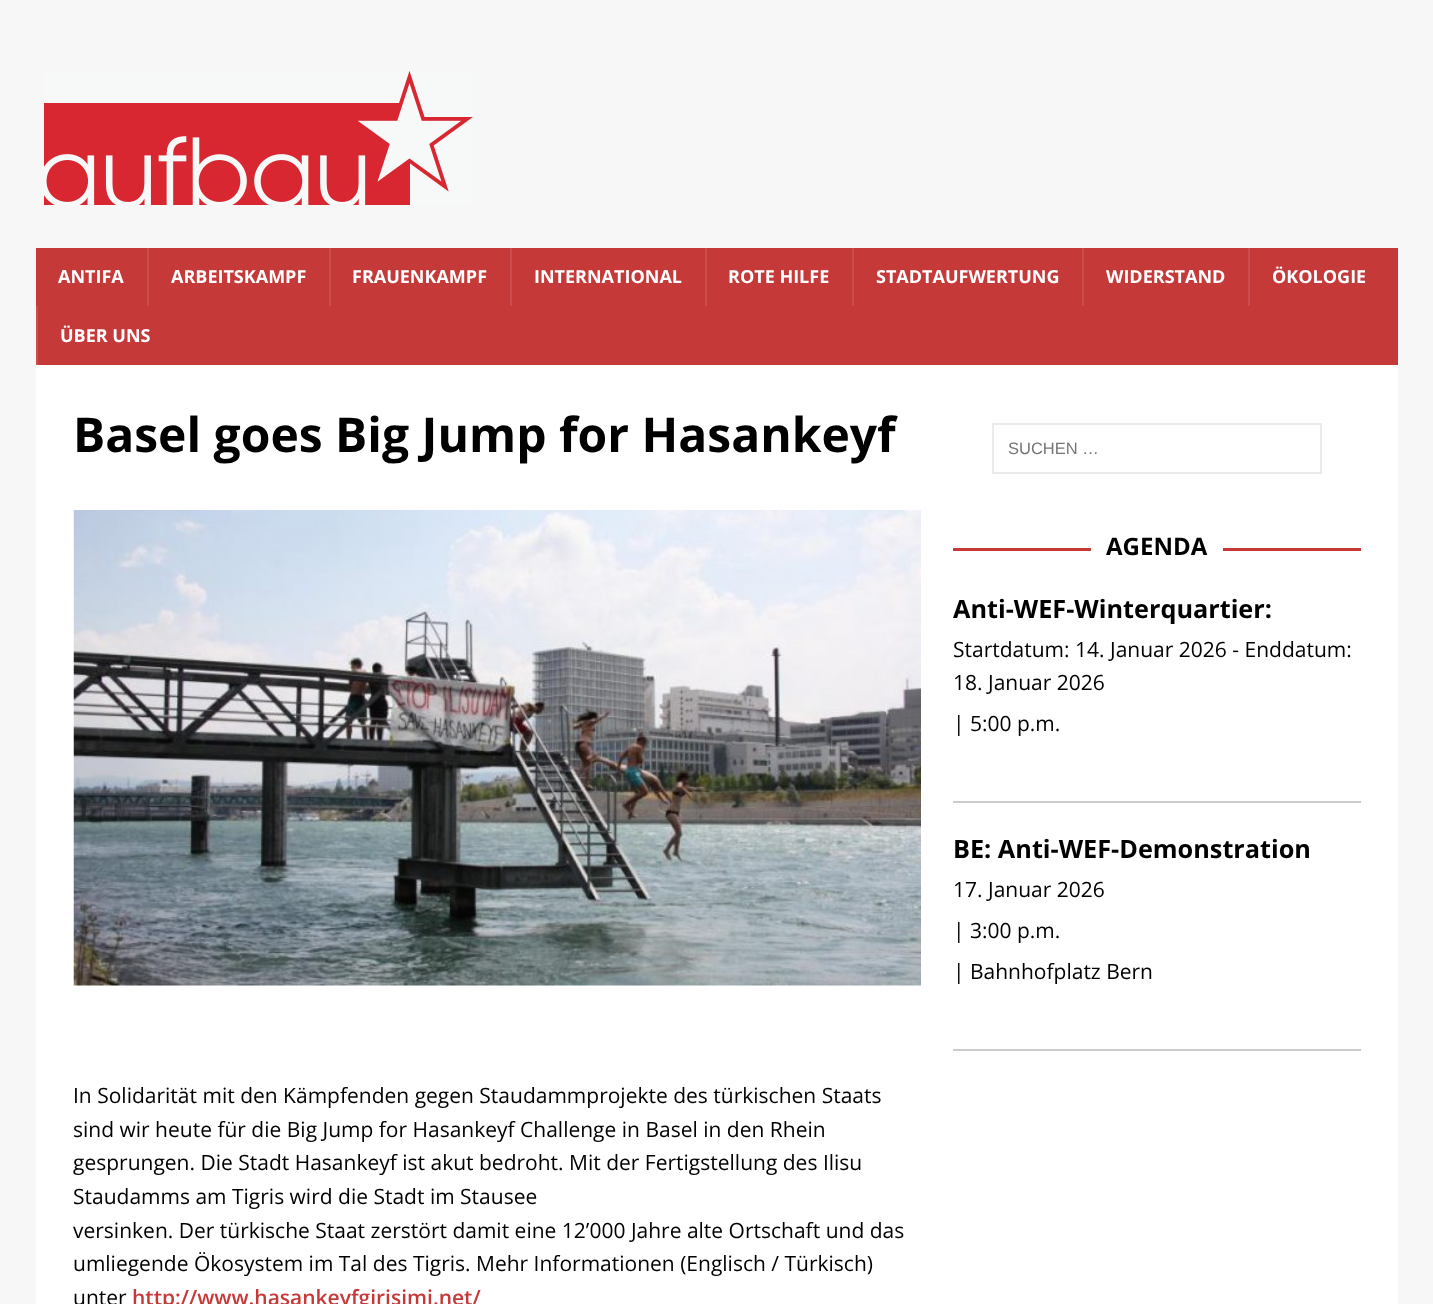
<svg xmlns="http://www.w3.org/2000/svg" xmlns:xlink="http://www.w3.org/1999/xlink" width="1433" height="1304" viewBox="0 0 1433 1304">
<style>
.cls-1{font:bold 18px Open Sans;fill:#ffffff}
.cls-2{font:bold 48px Open Sans;fill:#000000}
.cls-3{font:21px Open Sans;fill:#000000}
.cls-4{font:600 21px Open Sans;fill:#c63939}
.cls-5{font:16.5px Liberation Sans;fill:#757575}
.cls-6{font:bold 24px Open Sans;fill:#000000}
.cls-7{font:bold 25.25px Open Sans;fill:#000000}
</style>
<rect width="100%" height="100%" fill="#f7f7f7"/>
<image xlink:href="image0.png" x="44" y="71" width="429" height="134"/>
<rect fill="#c63939" x="36" y="248" width="1362" height="117"/>
<rect fill="#cc4d4d" x="147" y="248" width="2" height="58"/>
<rect fill="#cc4d4d" x="329" y="248" width="2" height="58"/>
<rect fill="#cc4d4d" x="510" y="248" width="2" height="58"/>
<rect fill="#cc4d4d" x="705" y="248" width="2" height="58"/>
<rect fill="#cc4d4d" x="852" y="248" width="2" height="58"/>
<rect fill="#cc4d4d" x="1082" y="248" width="2" height="58"/>
<rect fill="#cc4d4d" x="1248" y="248" width="2" height="58"/>
<rect fill="#cc4d4d" x="36" y="306" width="2" height="59"/>
<rect fill="#ffffff" x="36" y="365" width="1362" height="939"/>
<image xlink:href="image1.png" x="73" y="510" width="848" height="476"/>
<rect fill="none" stroke="#ebebeb" stroke-width="2" x="993" y="424" width="328" height="49"/>
<rect fill="#c63939" x="953" y="548" width="408" height="3"/>
<rect fill="#ffffff" x="1091" y="548" width="132" height="3"/>
<rect fill="#cccccc" x="953" y="801" width="408" height="2"/>
<rect fill="#cccccc" x="953" y="1049" width="408" height="2"/>
<text class="cls-1" x="58" y="283">ANTIFA</text>
<text class="cls-1" x="171" y="283">ARBEITSKAMPF</text>
<text class="cls-1" x="352" y="283">FRAUENKAMPF</text>
<text class="cls-1" x="534" y="283">INTERNATIONAL</text>
<text class="cls-1" x="728" y="283">ROTE HILFE</text>
<text class="cls-1" x="876" y="283">STADTAUFWERTUNG</text>
<text class="cls-1" x="1106" y="283">WIDERSTAND</text>
<text class="cls-1" x="1272" y="283">ÖKOLOGIE</text>
<text class="cls-1" x="60" y="342">ÜBER UNS</text>
<text class="cls-2" x="73" y="452">Basel goes Big Jump for Hasankeyf</text>
<text class="cls-3"><tspan x="73" y="1103">In Solidarität mit den Kämpfenden gegen Staudammprojekte des türkischen Staats</tspan><tspan x="73" y="1137">sind wir heute für die Big Jump for Hasankeyf Challenge in Basel in den Rhein</tspan><tspan x="73" y="1170">gesprungen. Die Stadt Hasankeyf ist akut bedroht. Mit der Fertigstellung des Ilisu</tspan><tspan x="73" y="1204">Staudamms am Tigris wird die Stadt im Stausee</tspan><tspan x="73" y="1238">versinken. Der türkische Staat zerstört damit eine 12’000 Jahre alte Ortschaft und das</tspan><tspan x="73" y="1271">umliegende Ökosystem im Tal des Tigris. Mehr Informationen (Englisch / Türkisch)</tspan><tspan x="73" y="1305">unter</tspan></text>
<text class="cls-4" x="132" y="1305">http://www.hasankeyfgirisimi.net/</text>
<text class="cls-5" x="1008" y="454">SUCHEN …</text>
<text class="cls-6" x="1106" y="555">AGENDA</text>
<text class="cls-7" x="953" y="618">Anti-WEF-Winterquartier:</text>
<text class="cls-3"><tspan x="953" y="657">Startdatum: 14. Januar 2026 - Enddatum:</tspan><tspan x="953" y="690">18. Januar 2026</tspan><tspan x="953" y="731">| 5:00 p.m.</tspan></text>
<text class="cls-7" x="953" y="858">BE: Anti-WEF-Demonstration</text>
<text class="cls-3"><tspan x="953" y="897">17. Januar 2026</tspan><tspan x="953" y="938">| 3:00 p.m.</tspan><tspan x="953" y="979">| Bahnhofplatz Bern</tspan></text>
</svg>
